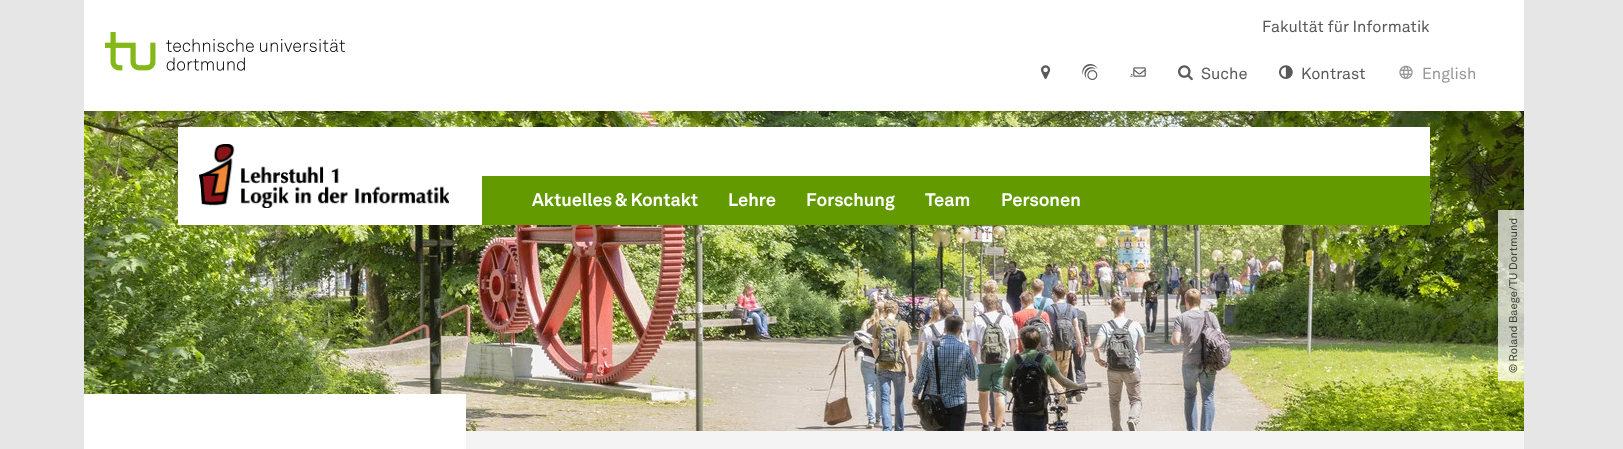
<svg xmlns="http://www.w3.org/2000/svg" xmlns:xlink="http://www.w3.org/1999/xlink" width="1623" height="449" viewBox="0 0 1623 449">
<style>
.cls-1{font:16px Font;fill:#595959}
.cls-2{font:16px Font;fill:#979797}
.cls-3{font:bold 18px Font;fill:#ffffff}
.cls-4{font:11px Font;fill:#3e3f39}
</style>
<rect width="100%" height="100%" fill="#e6e6e6"/>
<rect fill="#ffffff" x="84" y="0" width="1440" height="111"/>
<image xlink:href="image0.png" x="105" y="32" width="240" height="39"/>
<image xlink:href="image1.png" x="1041" y="65" width="10" height="14"/>
<image xlink:href="image2.png" x="1082" y="64" width="16" height="16"/>
<image xlink:href="image3.png" x="1130" y="67" width="16" height="10"/>
<image xlink:href="image4.png" x="1178" y="65" width="15" height="16"/>
<image xlink:href="image5.png" x="1279" y="65" width="14" height="14"/>
<image xlink:href="image6.png" x="1399" y="65" width="14" height="14"/>
<image xlink:href="image8.png" x="84" y="111" width="1440" height="320"/>
<rect fill="#ffffff" x="178" y="127" width="1252" height="98"/>
<image xlink:href="image7.png" x="199" y="144" width="250" height="64"/>
<rect fill="#639a00" x="482" y="176" width="948" height="49"/>
<rect fill="#ffffff" fill-opacity="0.7" x="1498" y="210" width="26" height="171"/>
<rect fill="#f4f4f4" x="466" y="431" width="1058" height="18"/>
<rect fill="#ffffff" x="84" y="394" width="382" height="55"/>
<text class="cls-1" x="1262" y="32">Fakultät für Informatik</text>
<text class="cls-1" x="1201" y="79">Suche</text>
<text class="cls-1" x="1301" y="79">Kontrast</text>
<text class="cls-2" x="1422" y="79">English</text>
<text class="cls-3" x="532" y="206">Aktuelles &amp; Kontakt</text>
<text class="cls-3" x="728" y="206">Lehre</text>
<text class="cls-3" x="806" y="206">Forschung</text>
<text class="cls-3" x="925" y="206">Team</text>
<text class="cls-3" x="1001" y="206">Personen</text>
<text class="cls-4" x="1517" y="373" transform="rotate(-90 1517 373)">© Roland Baege/TU Dortmund</text>
</svg>
